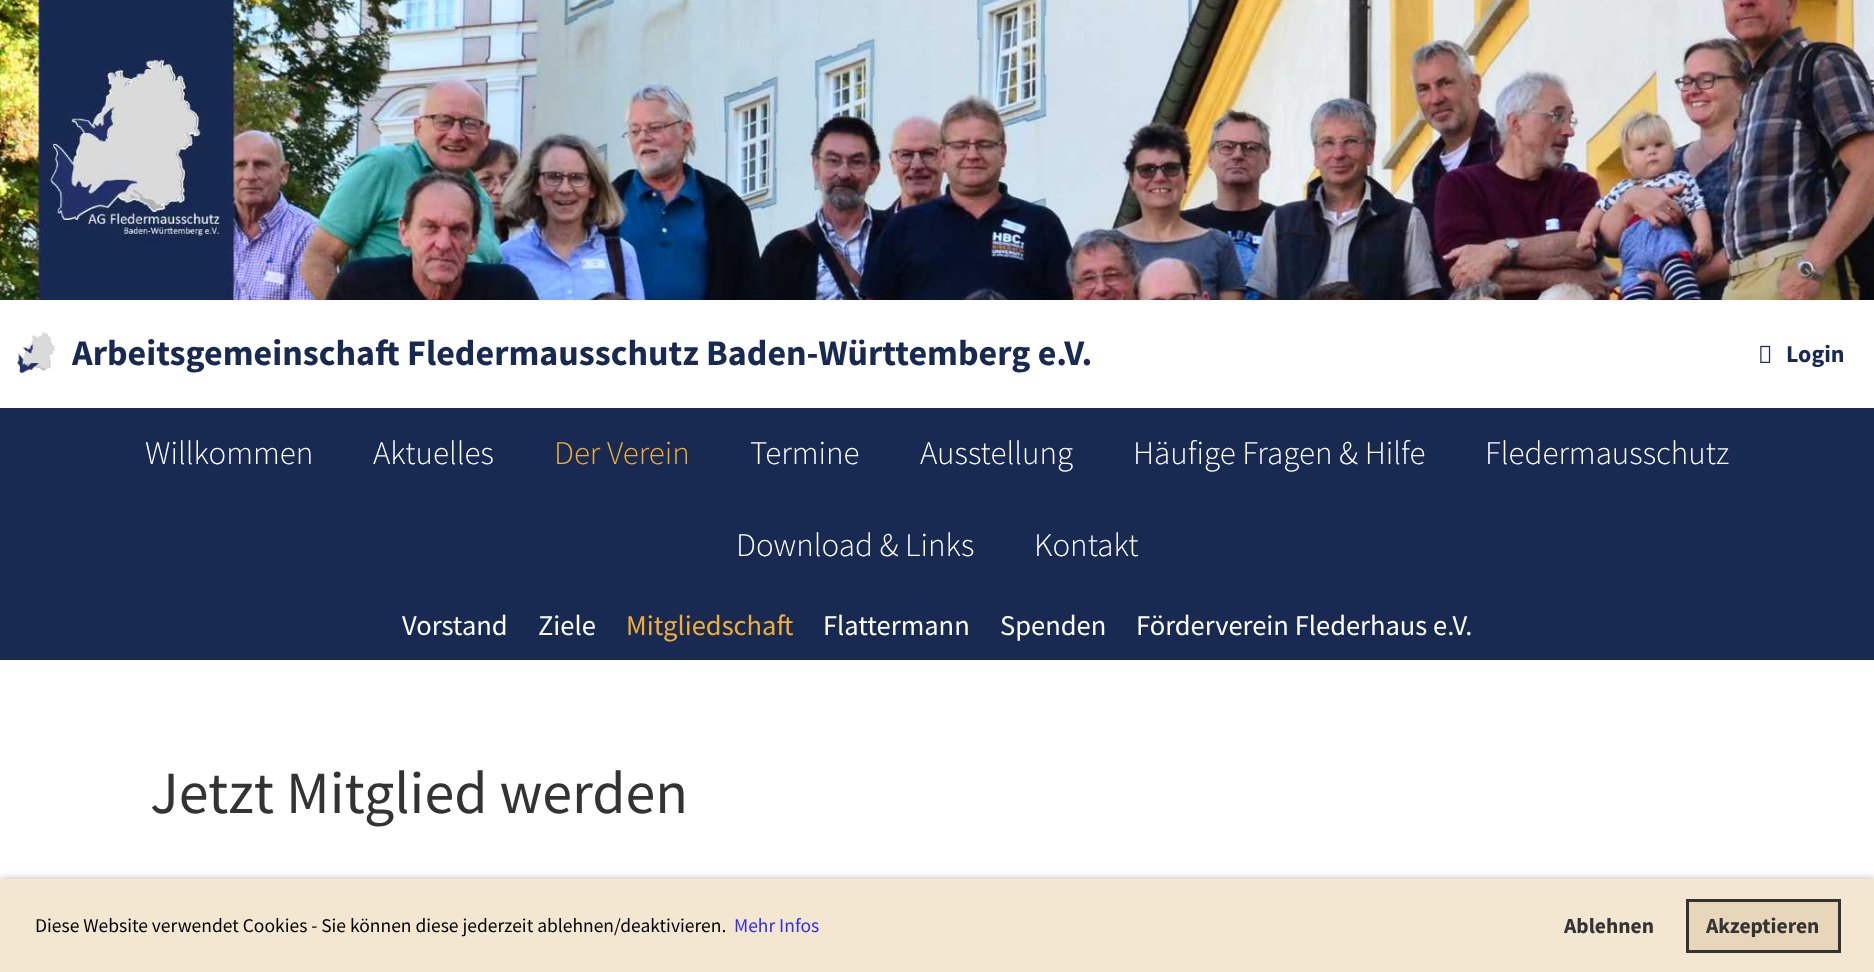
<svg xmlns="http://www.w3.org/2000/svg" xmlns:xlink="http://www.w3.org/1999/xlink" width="1874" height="972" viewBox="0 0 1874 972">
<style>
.cls-1{font:bold 36px Source Sans Pro;fill:#182a52}
.cls-2{font:bold 24px Source Sans Pro;fill:#182a52}
.cls-3{font:300 33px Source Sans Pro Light;fill:#ffffff}
.cls-4{font:300 33px Source Sans Pro Light;fill:#f4ae35}
.cls-5{font:28.5px Source Sans Pro;fill:#ffffff}
.cls-6{font:28.5px Source Sans Pro;fill:#f4ae35}
.cls-7{font:60px Source Sans Pro;fill:#333333}
.cls-8{font:19.5px Source Sans Pro;fill:#000000}
.cls-9{font:19.5px Source Sans Pro;fill:#312ee8}
.cls-10{font:bold 21.5px Source Sans Pro;fill:#333333}
</style>
<rect width="100%" height="100%" fill="#ffffff"/>
<image xlink:href="image0.png" x="0" y="0" width="1874" height="300"/>
<image xlink:href="image1.png" x="17" y="332" width="38" height="42"/>
<image xlink:href="image2.png" x="1760" y="345" width="11" height="18"/>
<rect fill="#182a52" x="0" y="408" width="1874" height="252"/>
<rect fill="#000000" fill-opacity="0.3" filter="blur(4px)" x="0" y="879" width="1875" height="93"/>
<rect fill="#f4e7d2" x="0" y="879" width="1874" height="93"/>
<rect fill="#e8d6ba" stroke="#333333" stroke-width="3" x="1687.5" y="900.5" width="152" height="51"/>
<text class="cls-1" x="72" y="365">Arbeitsgemeinschaft Fledermausschutz Baden-Württemberg e.V.</text>
<text class="cls-2" x="1786" y="362">Login</text>
<text class="cls-3" x="145" y="464">Willkommen</text>
<text class="cls-3" x="373" y="464">Aktuelles</text>
<text class="cls-4" x="554" y="464">Der Verein</text>
<text class="cls-3" x="750" y="464">Termine</text>
<text class="cls-3" x="920" y="464">Ausstellung</text>
<text class="cls-3" x="1133" y="464">Häufige Fragen &amp; Hilfe</text>
<text class="cls-3" x="1485" y="464">Fledermausschutz</text>
<text class="cls-3" x="736" y="556">Download &amp; Links</text>
<text class="cls-3" x="1034" y="556">Kontakt</text>
<text class="cls-5" x="402" y="635">Vorstand</text>
<text class="cls-5" x="538" y="635">Ziele</text>
<text class="cls-6" x="626" y="635">Mitgliedschaft</text>
<text class="cls-5" x="823" y="635">Flattermann</text>
<text class="cls-5" x="1000" y="635">Spenden</text>
<text class="cls-5" x="1136" y="635">Förderverein Flederhaus e.V.</text>
<text class="cls-7" x="150" y="813">Jetzt Mitglied werden</text>
<text class="cls-8" x="35" y="932">Diese Website verwendet Cookies - Sie können diese jederzeit ablehnen/deaktivieren.</text>
<text class="cls-9" x="734" y="932">Mehr Infos</text>
<text class="cls-10" x="1564" y="933">Ablehnen</text>
<text class="cls-10" x="1706" y="933">Akzeptieren</text>
</svg>
